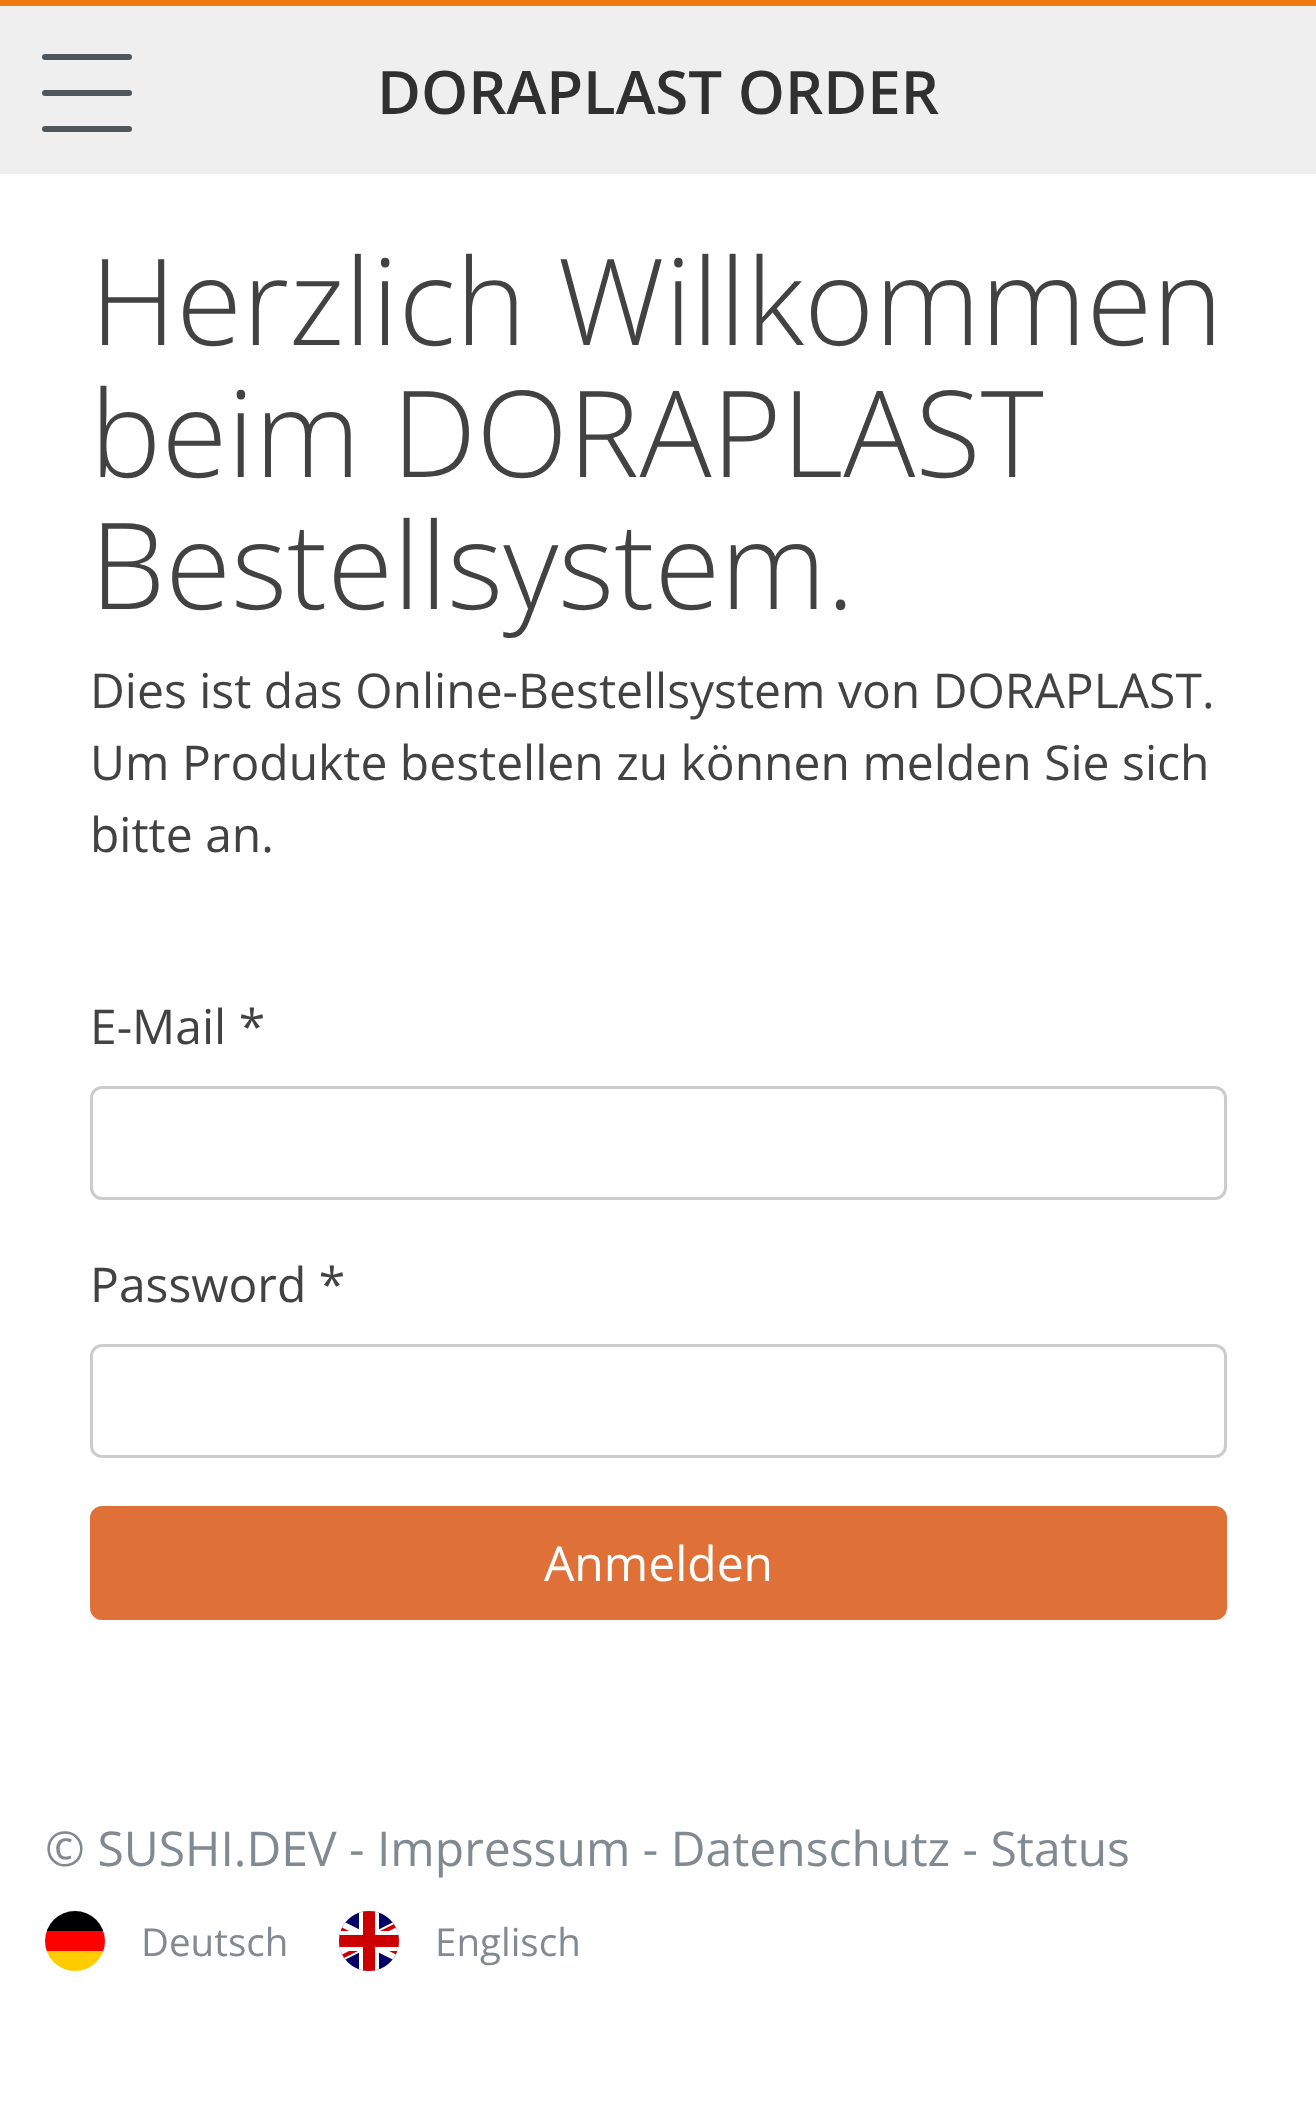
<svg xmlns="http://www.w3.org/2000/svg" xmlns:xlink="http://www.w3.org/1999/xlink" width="1316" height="2120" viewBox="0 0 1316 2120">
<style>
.cls-1{font:600 60px Open Sans;fill:#303030}
.cls-2{font:300 120px Open Sans;fill:#424242}
.cls-3{font:48px Open Sans;fill:#424242}
.cls-4{font:48px Open Sans;fill:#ffffff}
.cls-5{font:48px Open Sans;fill:#818a91}
.cls-6{font:38.5px Open Sans;fill:#818a91}
</style>
<defs>
<clipPath id="clip1"><rect x="45" y="1911" width="60" height="60" rx="30"/></clipPath>
</defs>
<rect width="100%" height="100%" fill="#ffffff"/>
<rect fill="#efefef" x="0" y="6" width="1316" height="168"/>
<rect fill="#ef7a12" x="0" y="0" width="1316" height="6"/>
<rect fill="#4f565c" x="42" y="90" width="90" height="6" rx="3"/>
<rect fill="#4f565c" x="42" y="54" width="90" height="6" rx="3"/>
<rect fill="#4f565c" x="42" y="126" width="90" height="6" rx="3"/>
<rect fill="none" stroke="#cccccc" stroke-width="3" x="91.5" y="1087.5" width="1134" height="111" rx="10.5"/>
<rect fill="none" stroke="#cccccc" stroke-width="3" x="91.5" y="1345.5" width="1134" height="111" rx="10.5"/>
<rect fill="#df7037" stroke="#df7037" stroke-width="3" x="91.5" y="1507.5" width="1134" height="111" rx="10.5"/>
<g clip-path="url(#clip1)">
<rect fill="#000000" x="46" y="1911" width="58" height="20"/>
<rect fill="#ff0000" x="45" y="1931" width="60" height="20"/>
<rect fill="#ffcc00" x="46" y="1951" width="58" height="20"/>
</g>
<image xlink:href="image0.png" x="339" y="1911" width="60" height="60"/>
<text class="cls-1" x="377" y="114">DORAPLAST ORDER</text>
<text class="cls-2"><tspan x="90" y="345">Herzlich Willkommen</tspan><tspan x="90" y="477">beim DORAPLAST</tspan><tspan x="90" y="609">Bestellsystem.</tspan></text>
<text class="cls-3"><tspan x="90" y="708">Dies ist das Online-Bestellsystem von DORAPLAST.</tspan><tspan x="90" y="780">Um Produkte bestellen zu können melden Sie sich</tspan><tspan x="90" y="852">bitte an.</tspan></text>
<text class="cls-3" x="90" y="1044">E-Mail *</text>
<text class="cls-3" x="90" y="1302">Password *</text>
<text class="cls-4" x="544" y="1581">Anmelden</text>
<text class="cls-5" x="45" y="1866">© SUSHI.DEV - Impressum - Datenschutz - Status</text>
<text class="cls-6" x="141" y="1956">Deutsch</text>
<text class="cls-6" x="435" y="1956">Englisch</text>
</svg>
